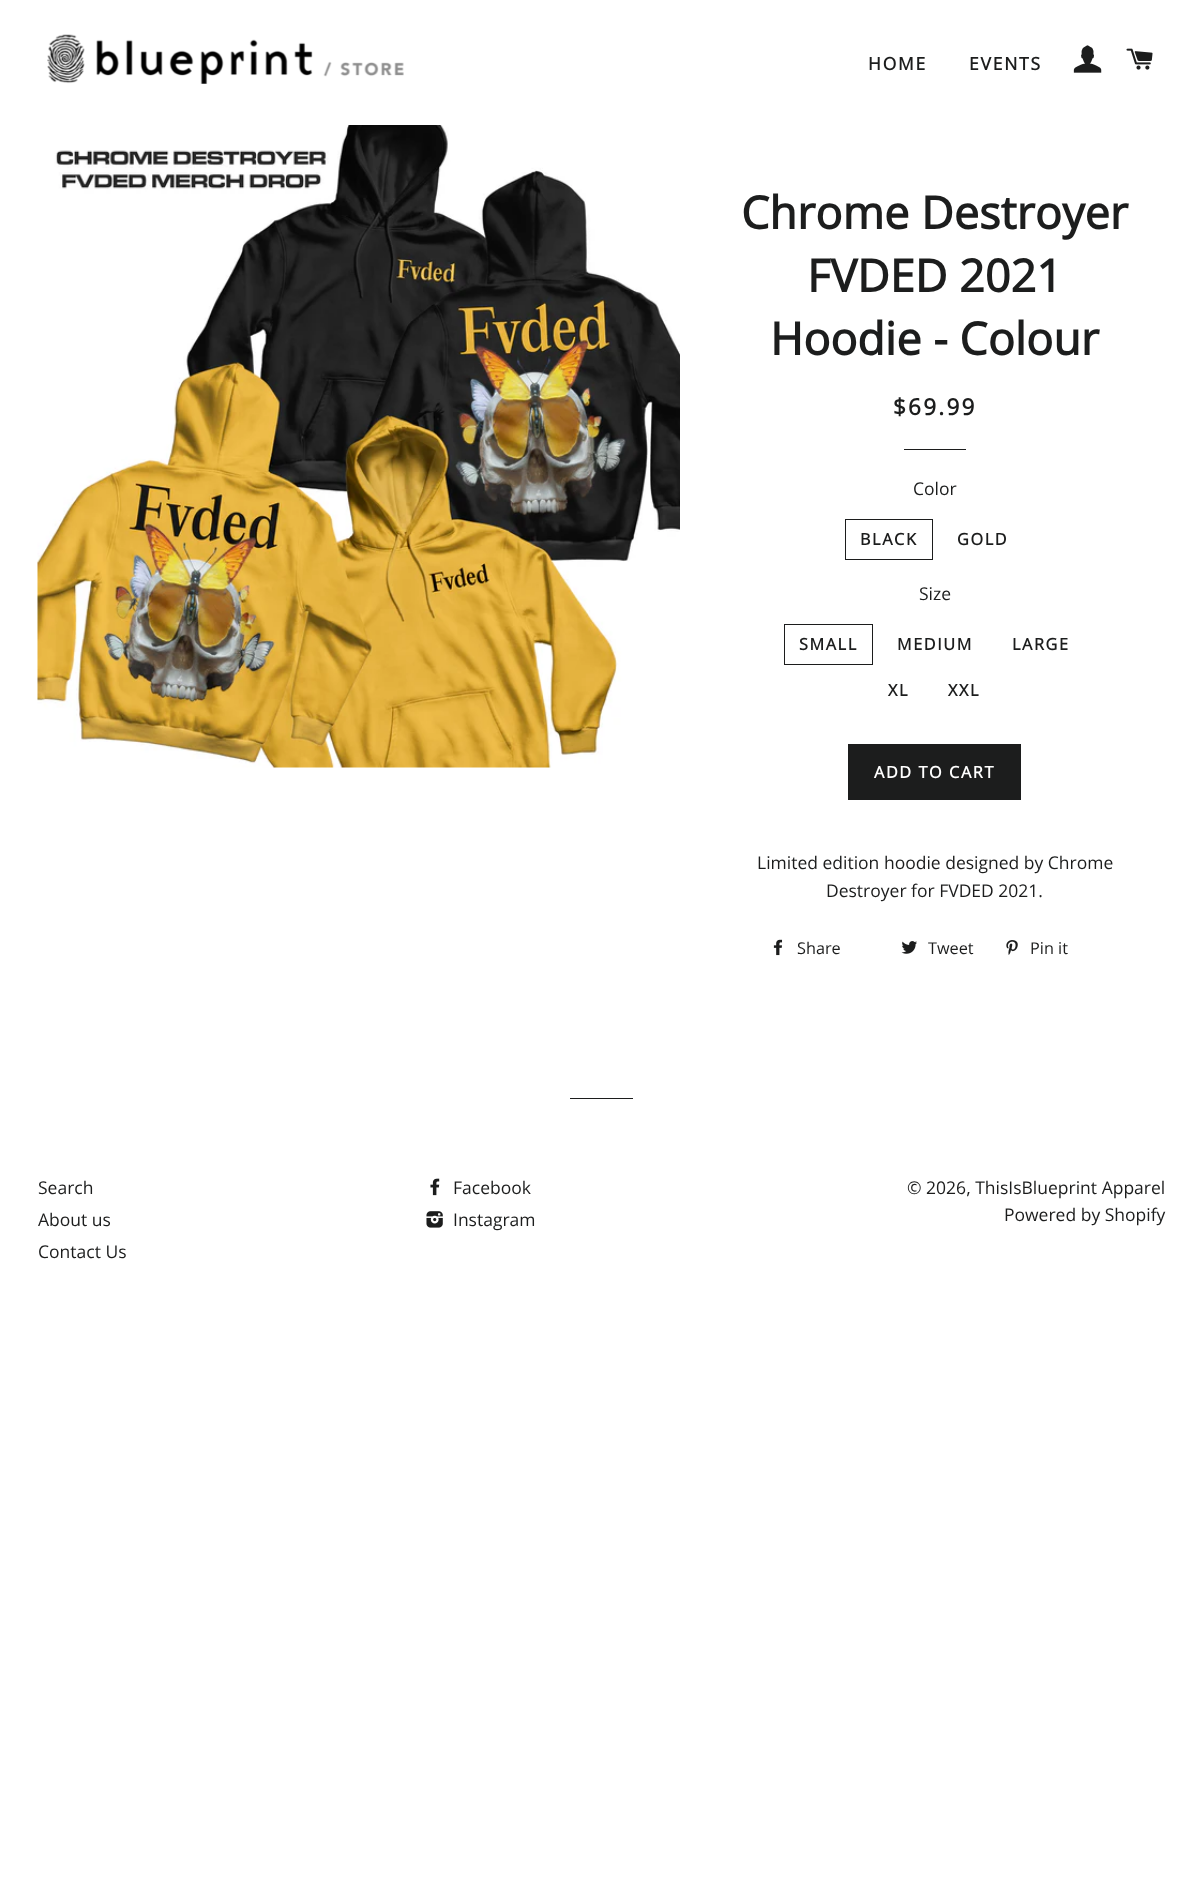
<svg xmlns="http://www.w3.org/2000/svg" xmlns:xlink="http://www.w3.org/1999/xlink" width="1202" height="1890" viewBox="0 0 1202 1890">
<style>
.cls-1{font:bold 17.5px Open Sans;letter-spacing:1.75px;fill:#1c1d1d}
.cls-2{font:bold 45px Open Sans;fill:#1c1d1d}
.cls-3{font:bold 22.5px Open Sans;letter-spacing:2.25px;fill:#1c1d1d}
.cls-4{font:17.5px Open Sans;fill:#1c1d1d}
.cls-5{font:bold 16.25px Open Sans;letter-spacing:1.6px;fill:#1c1d1d}
.cls-6{font:bold 16.25px Open Sans;letter-spacing:1.6px;fill:#ffffff}
.cls-7{font:16.25px Open Sans;fill:#1c1d1d}
</style>
<rect width="100%" height="100%" fill="#ffffff"/>
<image xlink:href="image0.png" x="47" y="34" width="357" height="50"/>
<image xlink:href="image1.png" x="1073" y="45" width="29" height="28"/>
<image xlink:href="image2.png" x="1126" y="48" width="27" height="22"/>
<image xlink:href="image3.png" x="37" y="125" width="643" height="643"/>
<rect fill="#1c1d1d" x="904" y="449" width="62" height="1"/>
<rect fill="none" stroke="#1c1d1d" x="845.5" y="519.5" width="87" height="40"/>
<rect fill="none" stroke="#1c1d1d" x="784.5" y="624.5" width="88" height="40"/>
<rect fill="#1c1d1d" x="848" y="744" width="173" height="56"/>
<image xlink:href="image4.png" x="773" y="939" width="10" height="17"/>
<image xlink:href="image5.png" x="901" y="941" width="16" height="13"/>
<image xlink:href="image6.png" x="1006" y="940" width="12" height="15"/>
<rect fill="#1c1d1d" x="570" y="1098" width="63" height="1"/>
<image xlink:href="image7.png" x="430" y="1178" width="10" height="18"/>
<image xlink:href="image8.png" x="426" y="1211" width="17" height="17"/>
<text class="cls-1" x="868" y="70">HOME</text>
<text class="cls-1" x="969" y="70">EVENTS</text>
<text class="cls-2" x="741" y="229">Chrome Destroyer</text>
<text class="cls-2" x="807" y="292">FVDED 2021</text>
<text class="cls-2" x="770" y="355">Hoodie - Colour</text>
<text class="cls-3" x="893" y="415">$69.99</text>
<text class="cls-4" x="913" y="495">Color</text>
<text class="cls-5" x="860" y="545">BLACK</text>
<text class="cls-5" x="957" y="545">GOLD</text>
<text class="cls-4" x="919" y="600">Size</text>
<text class="cls-5" x="799" y="650">SMALL</text>
<text class="cls-5" x="897" y="650">MEDIUM</text>
<text class="cls-5" x="1012" y="650">LARGE</text>
<text class="cls-5" x="888" y="696">XL</text>
<text class="cls-5" x="948" y="696">XXL</text>
<text class="cls-6" x="874" y="778">ADD TO CART</text>
<text class="cls-4" x="757" y="869">Limited edition hoodie designed by Chrome</text>
<text class="cls-4" x="826" y="897">Destroyer for FVDED 2021.</text>
<text class="cls-7" x="797" y="954">Share</text>
<text class="cls-7" x="928" y="954">Tweet</text>
<text class="cls-7" x="1030" y="954">Pin it</text>
<text class="cls-4"><tspan x="38" y="1194">Search</tspan><tspan x="38" y="1226">About us</tspan><tspan x="38" y="1258">Contact Us</tspan></text>
<text class="cls-4"><tspan x="453" y="1194">Facebook</tspan><tspan x="453" y="1226">Instagram</tspan></text>
<text class="cls-4" x="907" y="1194">© 2026, ThisIsBlueprint Apparel</text>
<text class="cls-4" x="1004" y="1221">Powered by Shopify</text>
</svg>
